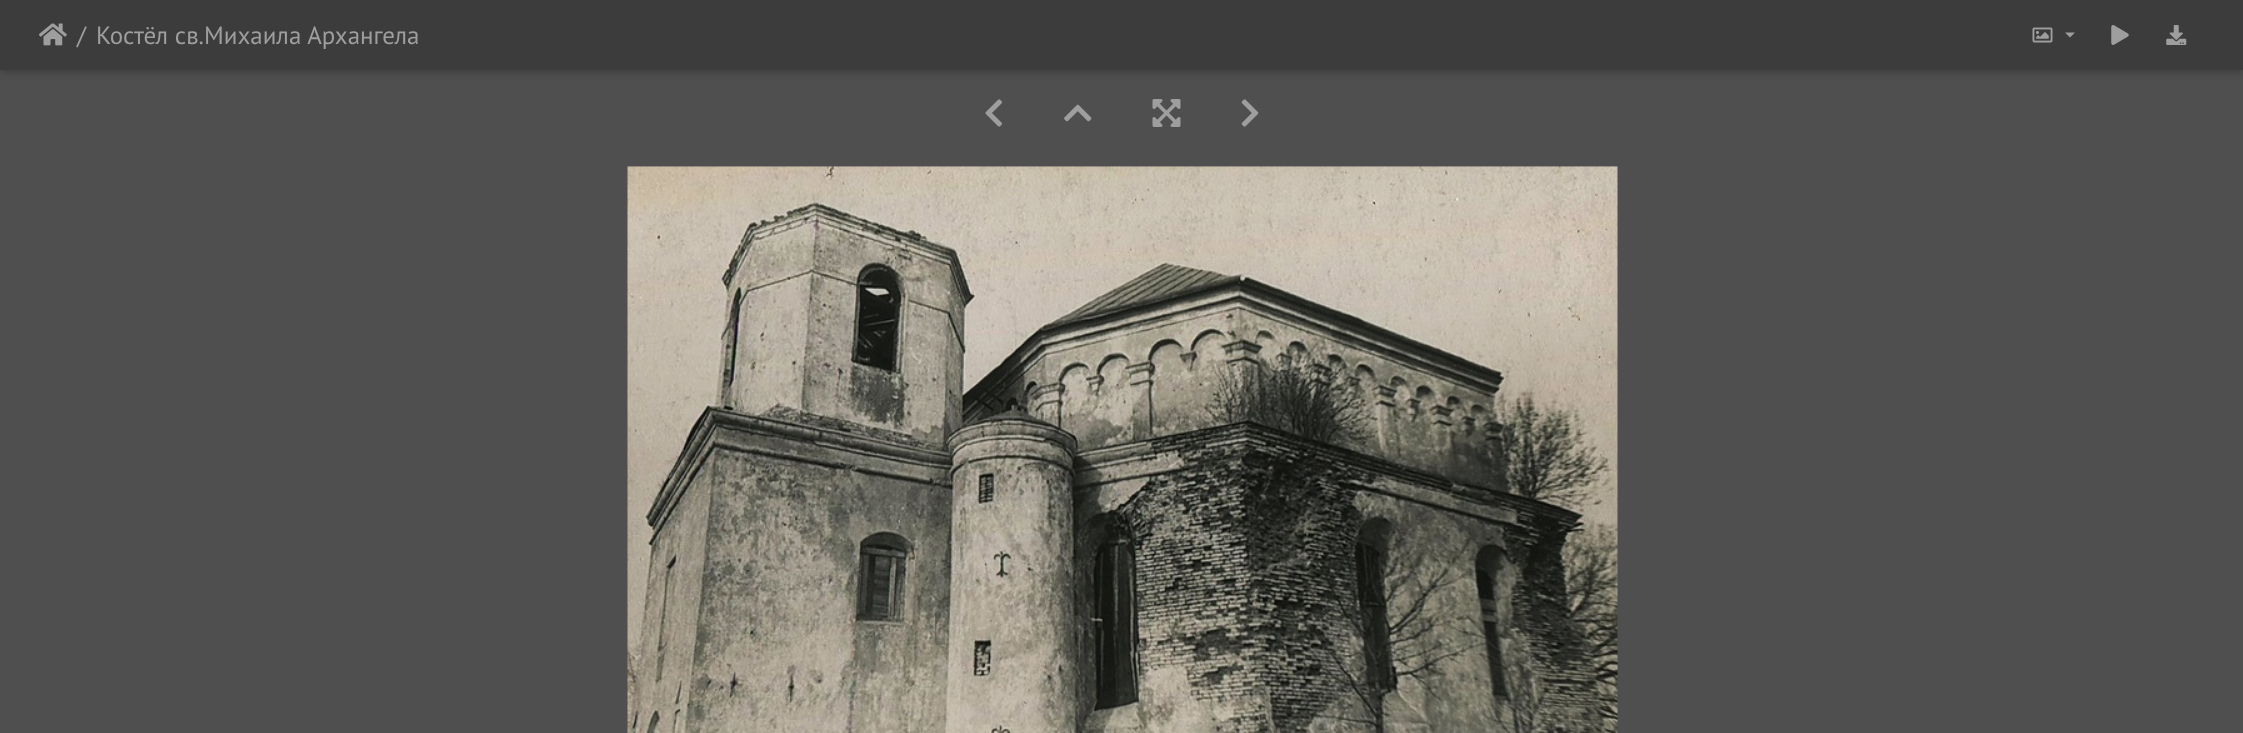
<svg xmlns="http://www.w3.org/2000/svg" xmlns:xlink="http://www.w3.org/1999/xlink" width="2243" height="733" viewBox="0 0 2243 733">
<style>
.cls-1{font:25px PT Sans;fill:#9e9e9e}
</style>
<rect width="100%" height="100%" fill="#4f4f4f"/>
<rect fill="#000000" fill-opacity="0.2" filter="blur(3px)" x="1" y="5" width="2242" height="68"/>
<rect fill="#3c3c3c" x="0" y="0" width="2243" height="70"/>
<image xlink:href="image0.png" x="39" y="23" width="28" height="23"/>
<image xlink:href="image1.png" x="2032" y="27" width="21" height="16"/>
<path fill="#9e9e9e" d="M2065 32.5H2075L2070 37.5Z"/>
<image xlink:href="image2.png" x="2111" y="25" width="18" height="20"/>
<image xlink:href="image3.png" x="2166" y="25" width="21" height="20"/>
<image xlink:href="image4.png" x="985" y="99" width="17" height="28"/>
<image xlink:href="image5.png" x="1064" y="104" width="28" height="18"/>
<image xlink:href="image6.png" x="1152" y="99" width="29" height="28"/>
<image xlink:href="image7.png" x="1241" y="99" width="18" height="28"/>
<image xlink:href="image8.png" x="627" y="166" width="991" height="567"/>
<text class="cls-1" x="77" y="44">/</text>
<text class="cls-1" x="96" y="44">Костёл св.Михаила Архангела</text>
</svg>
